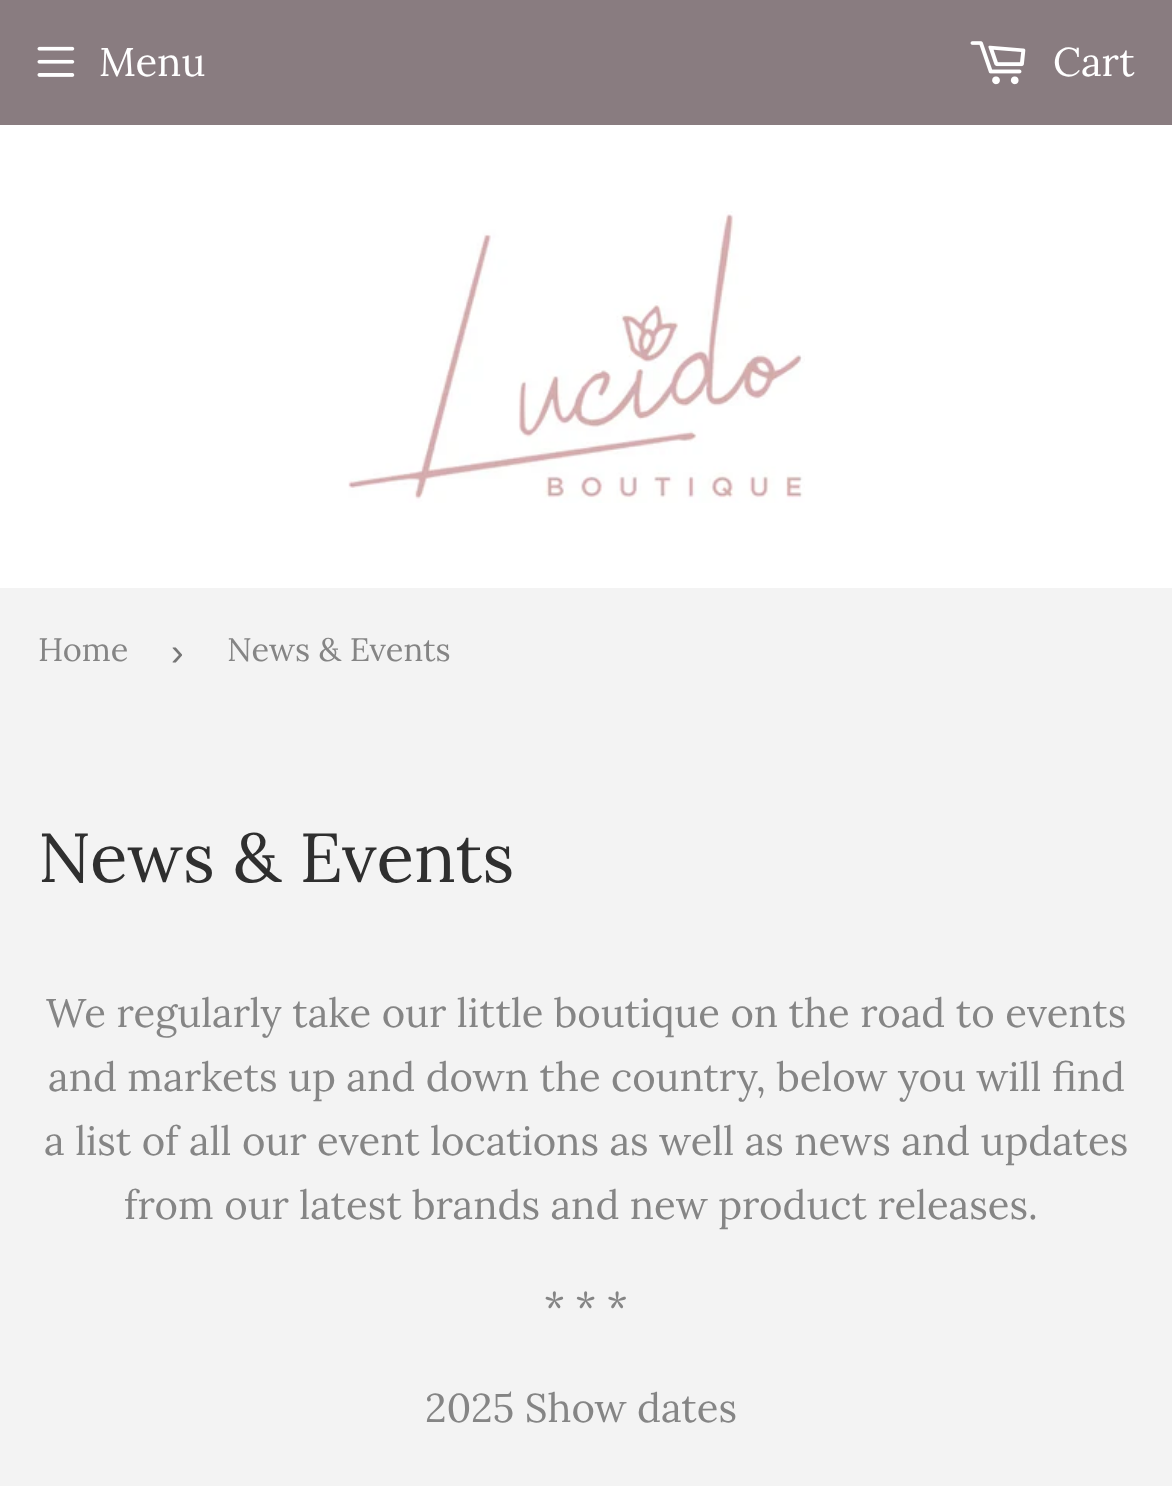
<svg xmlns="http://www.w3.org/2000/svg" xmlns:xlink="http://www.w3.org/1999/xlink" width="1172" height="1486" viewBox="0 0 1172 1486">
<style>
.cls-1{font:40px Lora;fill:#ffffff}
.cls-2{font:32.5px Lora;fill:#858585}
.cls-3{font:38px Liberation Sans;fill:#767676}
.cls-4{font:69.25px Lora;fill:#2f2f2f}
.cls-5{font:40px Lora;fill:#858585}
</style>
<rect width="100%" height="100%" fill="#f3f3f3"/>
<rect fill="#897c80" x="0" y="0" width="1172" height="125"/>
<image xlink:href="image0.png" x="37" y="46" width="38" height="31"/>
<image xlink:href="image1.png" x="970" y="41" width="56" height="44"/>
<rect fill="#ffffff" x="0" y="125" width="1172" height="463"/>
<image xlink:href="image2.png" x="348" y="211" width="457" height="292"/>
<text class="cls-1" x="99" y="76">Menu</text>
<text class="cls-1" x="1053" y="76">Cart</text>
<text class="cls-2" x="38" y="661">Home</text>
<text class="cls-3" x="171" y="665">›</text>
<text class="cls-2" x="227" y="661">News &amp; Events</text>
<text class="cls-4" x="38" y="882">News &amp; Events</text>
<text class="cls-5" x="46" y="1027">We regularly take our little boutique on the road to events</text>
<text class="cls-5" x="48" y="1091">and markets up and down the country, below you will find</text>
<text class="cls-5" x="44" y="1155">a list of all our event locations as well as news and updates</text>
<text class="cls-5" x="124" y="1219">from our latest brands and new product releases.</text>
<text class="cls-5" x="544" y="1320">* * *</text>
<text class="cls-5" x="425" y="1422">2025 Show dates</text>
</svg>
